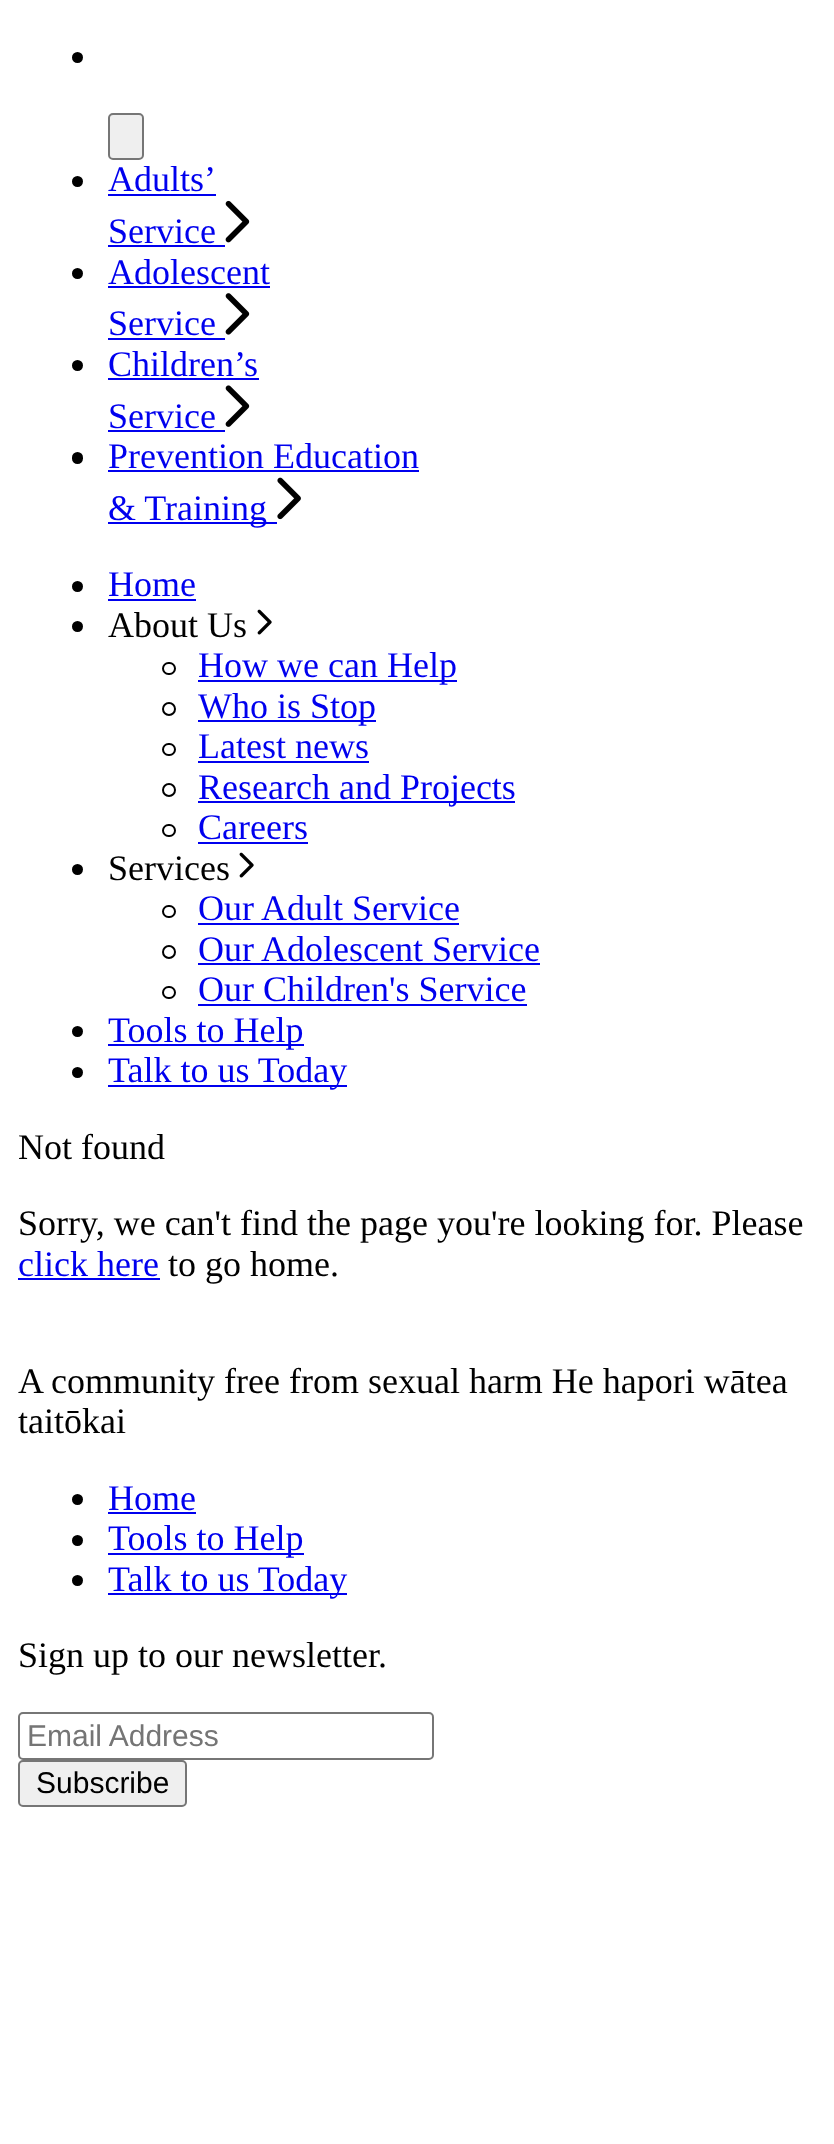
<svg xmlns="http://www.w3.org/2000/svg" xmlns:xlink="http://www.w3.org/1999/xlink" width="834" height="2144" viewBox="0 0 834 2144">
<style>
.cls-1{font:36px Liberation Serif;fill:#0000ee}
.cls-2{font:36px Liberation Serif;fill:#000000}
.cls-3{font:30px Liberation Sans;fill:#757575}
.cls-4{font:30px Liberation Sans;fill:#000000}
</style>
<rect width="100%" height="100%" fill="#ffffff"/>
<circle fill="#000000" cx="77.5" cy="57.5" r="5.5"/>
<rect fill="#efefef" stroke="#767676" stroke-width="2" x="109" y="114" width="34" height="45" rx="4"/>
<circle fill="#000000" cx="77.5" cy="181.5" r="5.5"/>
<rect fill="#0000ee" x="108" y="194" width="108" height="2"/>
<rect fill="#0000ee" x="108" y="245" width="117" height="2"/>
<image xlink:href="image0.png" x="225" y="200" width="25" height="43"/>
<circle fill="#000000" cx="77.5" cy="273.5" r="5.5"/>
<rect fill="#0000ee" x="108" y="286" width="162" height="2"/>
<rect fill="#0000ee" x="108" y="338" width="117" height="2"/>
<image xlink:href="image1.png" x="225" y="293" width="25" height="42"/>
<circle fill="#000000" cx="77.5" cy="365.5" r="5.5"/>
<rect fill="#0000ee" x="108" y="378" width="151" height="2"/>
<rect fill="#0000ee" x="108" y="430" width="117" height="2"/>
<image xlink:href="image2.png" x="225" y="385" width="25" height="42"/>
<rect fill="#000000" x="72" y="452" width="11" height="12" rx="5.5"/>
<rect fill="#0000ee" x="108" y="470" width="311" height="2"/>
<rect fill="#0000ee" x="108" y="522" width="169" height="2"/>
<image xlink:href="image3.png" x="277" y="477" width="24" height="43"/>
<circle fill="#000000" cx="77.5" cy="586.5" r="5.5"/>
<rect fill="#0000ee" x="108" y="599" width="88" height="2"/>
<circle fill="#000000" cx="77.5" cy="626.5" r="5.5"/>
<image xlink:href="image4.png" x="257" y="609" width="15" height="26"/>
<rect fill="none" stroke="#000000" stroke-width="2" x="163" y="663" width="12" height="11" rx="5.5"/>
<rect fill="#0000ee" x="198" y="680" width="259" height="2"/>
<circle fill="none" stroke="#000000" stroke-width="2" cx="169" cy="709" r="6"/>
<rect fill="#0000ee" x="198" y="720" width="178" height="2"/>
<rect fill="none" stroke="#000000" stroke-width="2" x="163" y="744" width="12" height="11" rx="5.5"/>
<rect fill="#0000ee" x="198" y="761" width="171" height="2"/>
<circle fill="none" stroke="#000000" stroke-width="2" cx="169" cy="790" r="6"/>
<rect fill="#0000ee" x="198" y="801" width="317" height="2"/>
<rect fill="none" stroke="#000000" stroke-width="2" x="163" y="825" width="12" height="11" rx="5.5"/>
<rect fill="#0000ee" x="198" y="842" width="110" height="2"/>
<circle fill="#000000" cx="77.5" cy="869.5" r="5.5"/>
<image xlink:href="image4.png" x="239" y="852" width="15" height="26"/>
<rect fill="none" stroke="#000000" stroke-width="2" x="163" y="906" width="12" height="11" rx="5.5"/>
<rect fill="#0000ee" x="198" y="923" width="261" height="2"/>
<circle fill="none" stroke="#000000" stroke-width="2" cx="169" cy="952" r="6"/>
<rect fill="#0000ee" x="198" y="963" width="342" height="2"/>
<rect fill="none" stroke="#000000" stroke-width="2" x="163" y="987" width="12" height="11" rx="5.5"/>
<rect fill="#0000ee" x="198" y="1004" width="329" height="2"/>
<circle fill="#000000" cx="77.5" cy="1031.5" r="5.5"/>
<rect fill="#0000ee" x="108" y="1044" width="196" height="2"/>
<circle fill="#000000" cx="77.5" cy="1072.5" r="5.5"/>
<rect fill="#0000ee" x="108" y="1085" width="239" height="2"/>
<rect fill="#0000ee" x="18" y="1278" width="142" height="2"/>
<circle fill="#000000" cx="77.5" cy="1499.5" r="5.5"/>
<rect fill="#0000ee" x="108" y="1512" width="88" height="2"/>
<circle fill="#000000" cx="77.5" cy="1540.5" r="5.5"/>
<rect fill="#0000ee" x="108" y="1553" width="196" height="2"/>
<circle fill="#000000" cx="77.5" cy="1580.5" r="5.5"/>
<rect fill="#0000ee" x="108" y="1593" width="239" height="2"/>
<rect fill="none" stroke="#767676" stroke-width="2" x="19" y="1713" width="414" height="46" rx="4"/>
<rect fill="#efefef" stroke="#767676" stroke-width="2" x="19" y="1761" width="167" height="45" rx="4"/>
<text class="cls-1"><tspan x="108" y="191">Adults’</tspan><tspan x="108" y="243">Service</tspan><tspan x="108" y="284">Adolescent</tspan><tspan x="108" y="335">Service</tspan><tspan x="108" y="376">Children’s</tspan><tspan x="108" y="428">Service</tspan><tspan x="108" y="468">Prevention Education</tspan><tspan x="108" y="520">&amp; Training</tspan></text>
<text class="cls-1" x="108" y="596">Home</text>
<text class="cls-2" x="108" y="637">About Us</text>
<text class="cls-1"><tspan x="198" y="677">How we can Help</tspan><tspan x="198" y="718">Who is Stop</tspan><tspan x="198" y="758">Latest news</tspan><tspan x="198" y="799">Research and Projects</tspan><tspan x="198" y="839">Careers</tspan></text>
<text class="cls-2" x="108" y="880">Services</text>
<text class="cls-1"><tspan x="198" y="920">Our Adult Service</tspan><tspan x="198" y="961">Our Adolescent Service</tspan><tspan x="198" y="1001">Our Children's Service</tspan></text>
<text class="cls-1"><tspan x="108" y="1042">Tools to Help</tspan><tspan x="108" y="1082">Talk to us Today</tspan></text>
<text class="cls-2" x="18" y="1159">Not found</text>
<text class="cls-2" x="18" y="1235">Sorry, we can't find the page you're looking for. Please</text>
<text class="cls-1" x="18" y="1276">click here</text>
<text class="cls-2" x="168" y="1276">to go home.</text>
<text class="cls-2"><tspan x="18" y="1393">A community free from sexual harm He hapori wātea</tspan><tspan x="18" y="1433">taitōkai</tspan></text>
<text class="cls-1"><tspan x="108" y="1510">Home</tspan><tspan x="108" y="1550">Tools to Help</tspan><tspan x="108" y="1591">Talk to us Today</tspan></text>
<text class="cls-2" x="18" y="1667">Sign up to our newsletter.</text>
<text class="cls-3" x="27" y="1746">Email Address</text>
<text class="cls-4" x="36" y="1793">Subscribe</text>
</svg>
